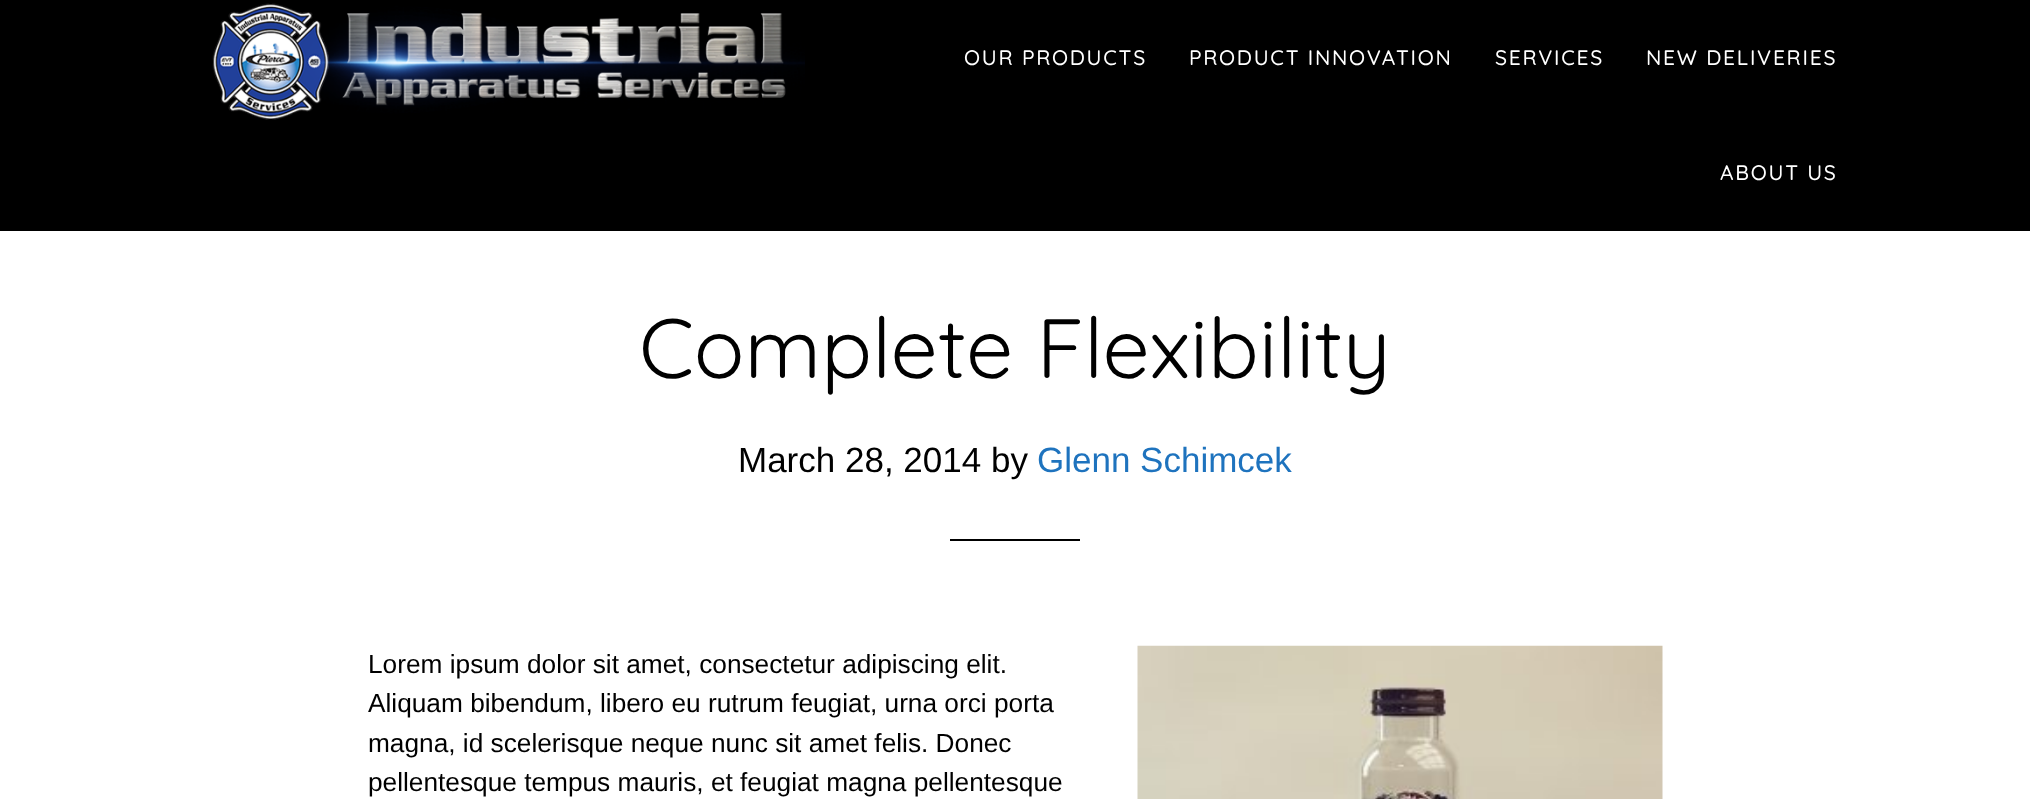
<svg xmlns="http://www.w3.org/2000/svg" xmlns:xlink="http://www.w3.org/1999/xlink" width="2030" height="799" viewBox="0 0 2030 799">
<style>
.cls-1{font:500 21px Quicksand;letter-spacing:1.75px;fill:#ffffff}
.cls-2{font:84px Quicksand;fill:#000000}
.cls-3{font:35px Liberation Sans;fill:#000000}
.cls-4{font:35px Liberation Sans;fill:#1e73be}
.cls-5{font:26.25px Liberation Sans;fill:#000000}
</style>
<rect width="100%" height="100%" fill="#ffffff"/>
<rect fill="#000000" x="0" y="0" width="2030" height="231"/>
<image xlink:href="image0.png" x="212" y="3" width="593" height="117"/>
<rect fill="#000000" x="950" y="539" width="130" height="2"/>
<image xlink:href="image1.png" x="1137" y="645" width="526" height="154"/>
<text class="cls-1" x="964" y="65">OUR PRODUCTS</text>
<text class="cls-1" x="1189" y="65">PRODUCT INNOVATION</text>
<text class="cls-1" x="1495" y="65">SERVICES</text>
<text class="cls-1" x="1646" y="65">NEW DELIVERIES</text>
<text class="cls-1" x="1720" y="180">ABOUT US</text>
<text class="cls-2" x="639" y="378">Complete Flexibility</text>
<text class="cls-3" x="738" y="472">March 28, 2014 by</text>
<text class="cls-4" x="1037" y="472">Glenn Schimcek</text>
<text class="cls-5"><tspan x="368" y="673">Lorem ipsum dolor sit amet, consectetur adipiscing elit.</tspan><tspan x="368" y="712">Aliquam bibendum, libero eu rutrum feugiat, urna orci porta</tspan><tspan x="368" y="752">magna, id scelerisque neque nunc sit amet felis. Donec</tspan><tspan x="368" y="791">pellentesque tempus mauris, et feugiat magna pellentesque</tspan></text>
</svg>
